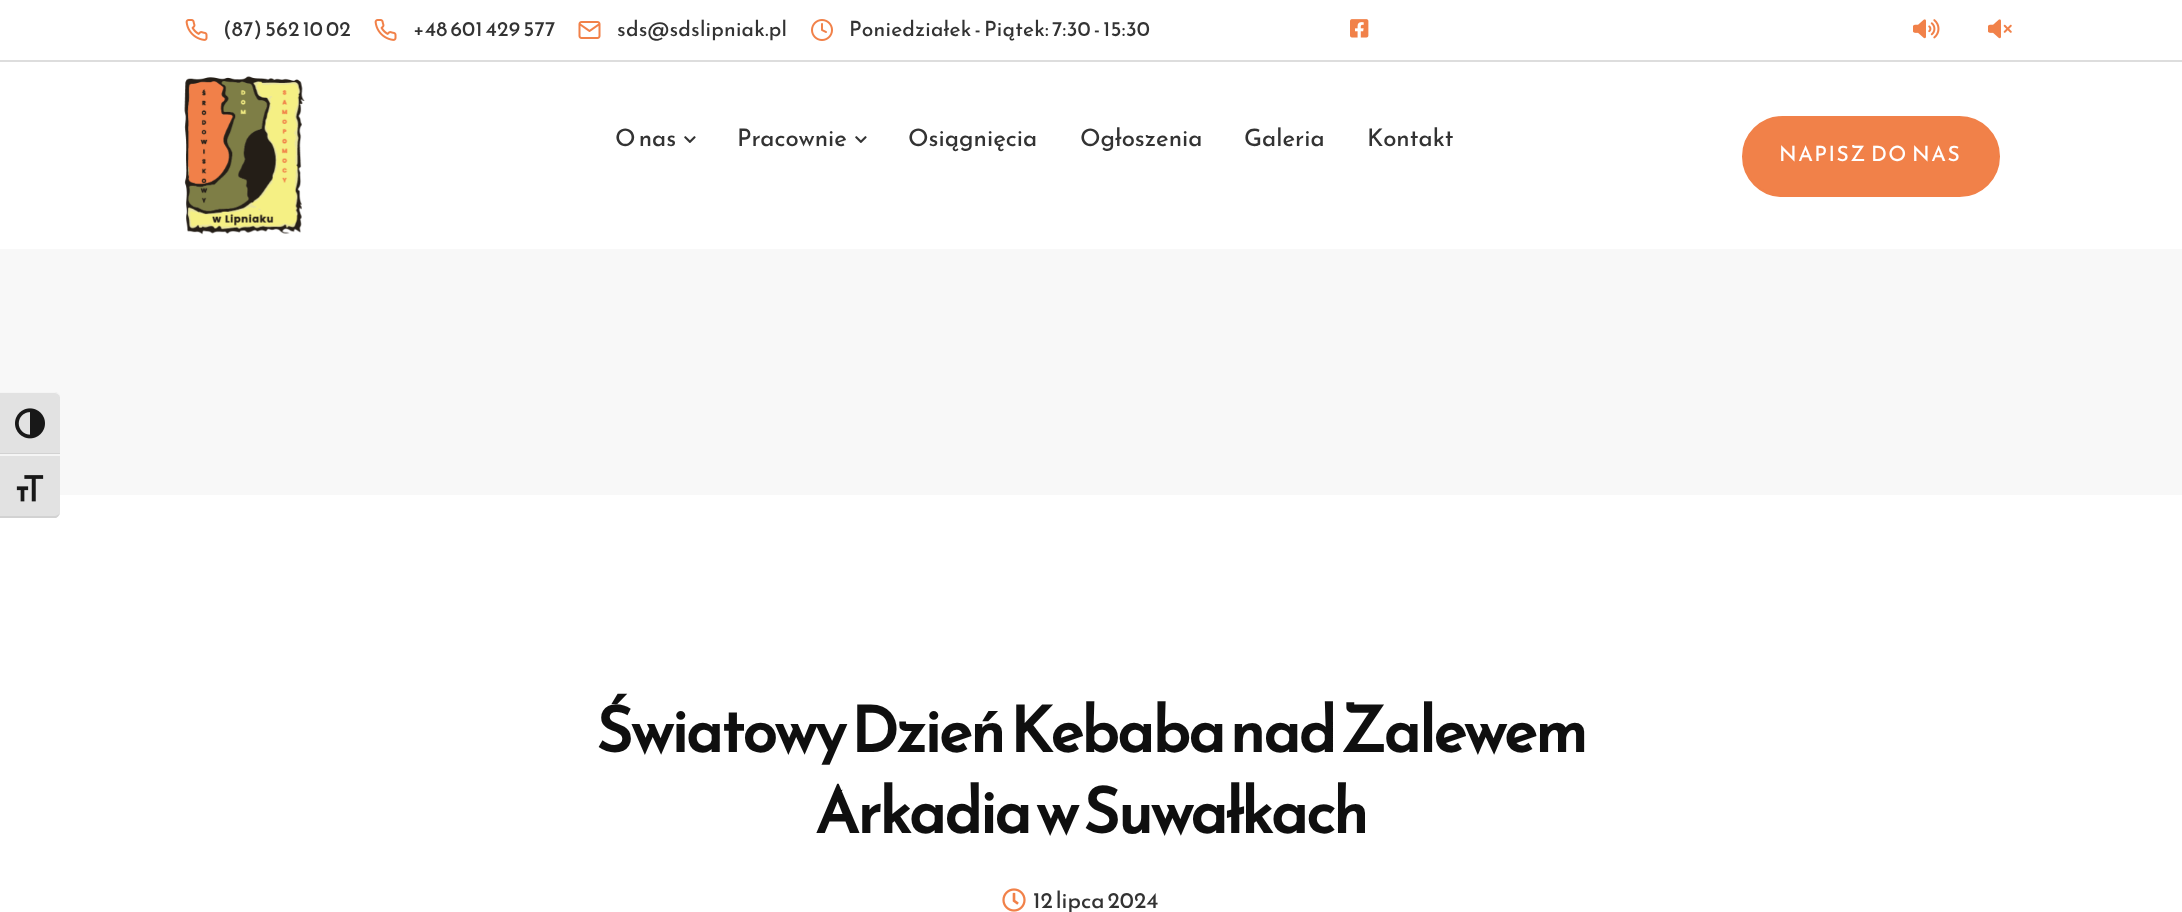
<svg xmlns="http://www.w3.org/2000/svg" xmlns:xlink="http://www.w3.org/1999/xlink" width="2182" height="912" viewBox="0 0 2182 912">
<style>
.cls-1{font:21px Reem Kufi;letter-spacing:0.2px;fill:#333333}
.cls-2{font:24px Reem Kufi;fill:#333333}
.cls-3{font:21px Reem Kufi;letter-spacing:1.5px;fill:#ffffff}
.cls-4{font:bold 63px Reem Kufi;letter-spacing:-1.9px;fill:#0f0f0f}
.cls-5{font:22.5px Reem Kufi;fill:#333333}
</style>
<rect width="100%" height="100%" fill="#ffffff"/>
<rect fill="#dddddd" x="0" y="60" width="2182" height="2"/>
<image xlink:href="image0.png" x="185" y="19" width="23" height="22"/>
<image xlink:href="image0.png" x="374" y="19" width="23" height="22"/>
<image xlink:href="image1.png" x="578" y="21" width="23" height="18"/>
<image xlink:href="image2.png" x="811" y="19" width="22" height="22"/>
<image xlink:href="image3.png" x="1350" y="19" width="19" height="19"/>
<image xlink:href="image4.png" x="1913" y="19" width="27" height="20"/>
<image xlink:href="image5.png" x="1988" y="19" width="24" height="20"/>
<image xlink:href="image6.png" x="184" y="76" width="121" height="159"/>
<image xlink:href="image7.png" x="684" y="136" width="12" height="7"/>
<image xlink:href="image7.png" x="855" y="136" width="12" height="7"/>
<rect fill="#f18149" stroke="#f18149" stroke-width="2" x="1743" y="117" width="256" height="79" rx="39.5"/>
<rect fill="#f8f8f8" x="0" y="249" width="2182" height="246"/>
<path fill="#e2e2e2" d="M0 392H54C57.5 392 60 394.5 60 398V455H0Z"/>
<path fill="#f5f5f5" d="M0 393H54C57 393 60 395 60 398C60 394 57 392 54 392H0Z"/>
<rect fill="#d2d2d2" x="0" y="453" width="60" height="1"/>
<image xlink:href="image8.png" x="15" y="408" width="30" height="31"/>
<path fill="#e2e2e2" d="M0 455H60V512C60 515.5 57.5 518 54 518H0Z"/>
<rect fill="#f5f5f5" x="0" y="454" width="60" height="2"/>
<path fill="#d2d2d2" d="M56 518C58 517 60 514 60 512C60 514 57 516 54 516H0V518Z"/>
<image xlink:href="image9.png" x="16" y="475" width="28" height="27"/>
<image xlink:href="image10.png" x="1002" y="888" width="24" height="24"/>
<text class="cls-1" x="223" y="36">(87) 562 10 02</text>
<text class="cls-1" x="413" y="36">+48 601 429 577</text>
<text class="cls-1" x="617" y="36">sds@sdslipniak.pl</text>
<text class="cls-1" x="849" y="36">Poniedziałek - Piątek: 7:30 - 15:30</text>
<text class="cls-2" x="615" y="146">O nas</text>
<text class="cls-2" x="737" y="146">Pracownie</text>
<text class="cls-2" x="908" y="146">Osiągnięcia</text>
<text class="cls-2" x="1080" y="146">Ogłoszenia</text>
<text class="cls-2" x="1244" y="146">Galeria</text>
<text class="cls-2" x="1367" y="146">Kontakt</text>
<text class="cls-3" x="1779" y="161">NAPISZ DO NAS</text>
<text class="cls-4" x="596" y="752">Światowy Dzień Kebaba nad Zalewem</text>
<text class="cls-4" x="815" y="833">Arkadia w Suwałkach</text>
<text class="cls-5" x="1033" y="908">12 lipca 2024</text>
</svg>
